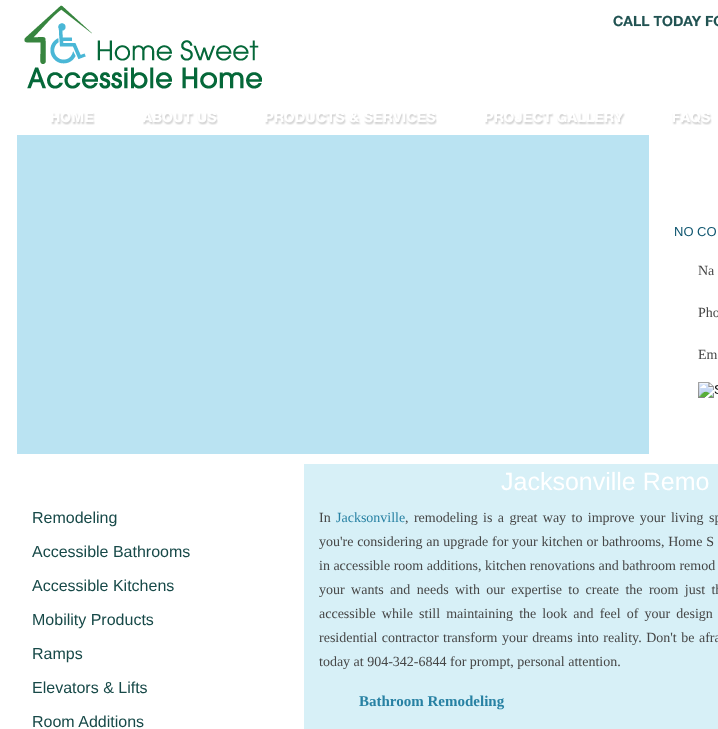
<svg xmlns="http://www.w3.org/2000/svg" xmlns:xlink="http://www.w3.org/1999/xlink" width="718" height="729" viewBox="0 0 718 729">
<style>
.cls-1{font:13px Liberation Sans;fill:#0e556f}
.cls-2{font:14px Liberation Serif;fill:#464646}
.cls-3{font:16px Liberation Sans;fill:#174948}
.cls-4{font:25px Liberation Sans;fill:#ffffff}
.cls-5{font:14px Liberation Serif;fill:#2781a3}
.cls-6{font:bold 15px Liberation Serif;fill:#2781a3}
</style>
<rect width="100%" height="100%" fill="#ffffff"/>
<image xlink:href="image0.png" x="24" y="5" width="238" height="84"/>
<image xlink:href="image1.png" x="613" y="15" width="105" height="12"/>
<image xlink:href="image2.png" x="51" y="113" width="44" height="12"/>
<image xlink:href="image3.png" x="143" y="113" width="75" height="12"/>
<image xlink:href="image4.png" x="265" y="113" width="172" height="12"/>
<image xlink:href="image5.png" x="485" y="113" width="140" height="12"/>
<image xlink:href="image6.png" x="672" y="113" width="40" height="12"/>
<rect fill="#bae3f2" x="17" y="135" width="632" height="319"/>
<image xlink:href="image7.png" x="698" y="382" width="20" height="16"/>
<rect fill="#d7f0f7" x="304" y="464" width="414" height="265"/>
<text class="cls-1" x="674" y="236">NO CO</text>
<text class="cls-2" x="698" y="275">Na</text>
<text class="cls-2" x="698" y="317">Pho</text>
<text class="cls-2" x="698" y="359">Em</text>
<text class="cls-3" x="32" y="523">Remodeling</text>
<text class="cls-3" x="32" y="557">Accessible Bathrooms</text>
<text class="cls-3" x="32" y="591">Accessible Kitchens</text>
<text class="cls-3" x="32" y="625">Mobility Products</text>
<text class="cls-3" x="32" y="659">Ramps</text>
<text class="cls-3" x="32" y="693">Elevators &amp; Lifts</text>
<text class="cls-3" x="32" y="727">Room Additions</text>
<text class="cls-4" x="501" y="490">Jacksonville Remo</text>
<text class="cls-2" x="319" y="522">In</text>
<text class="cls-5" x="336" y="522">Jacksonville</text>
<text class="cls-2" x="405" y="522" word-spacing="1.9">, remodeling is a great way to improve your living sp</text>
<text class="cls-2"><tspan x="319" y="546" word-spacing="0.25">you're considering an upgrade for your kitchen or bathrooms, Home S</tspan><tspan x="319" y="570">in accessible room additions, kitchen renovations and bathroom remod</tspan><tspan x="319" y="594" word-spacing="2.9">your wants and needs with our expertise to create the room just th</tspan><tspan x="319" y="618" word-spacing="2.6">accessible while still maintaining the look and feel of your design</tspan><tspan x="319" y="642" word-spacing="1">residential contractor transform your dreams into reality. Don't be afra</tspan><tspan x="319" y="666">today at 904-342-6844 for prompt, personal attention.</tspan></text>
<text class="cls-6" x="359" y="706">Bathroom Remodeling</text>
</svg>
